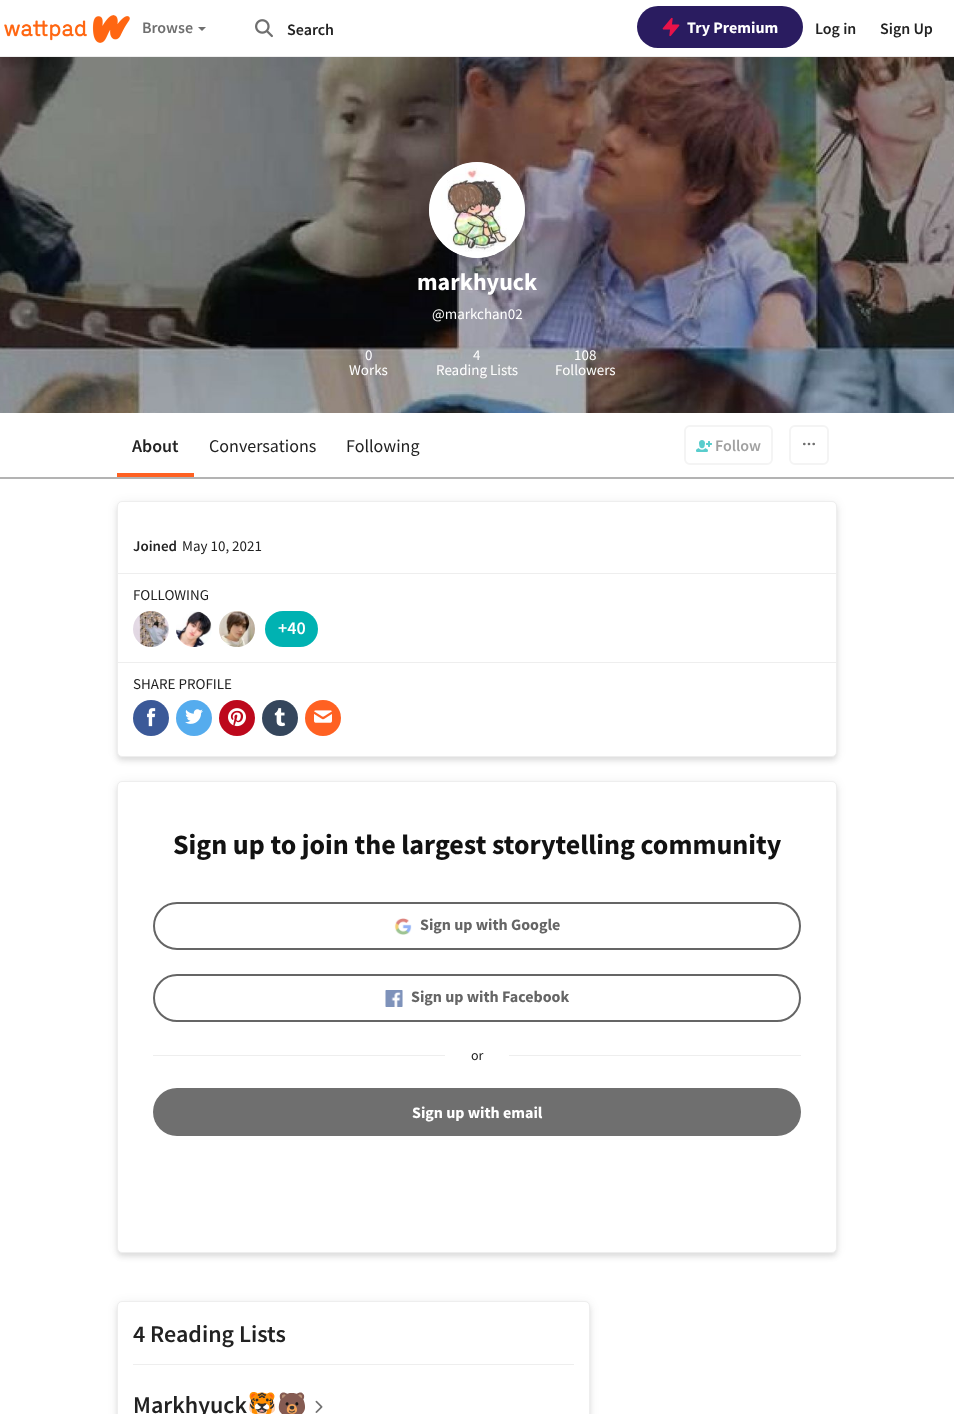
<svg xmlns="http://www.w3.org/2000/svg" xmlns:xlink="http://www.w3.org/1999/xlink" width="954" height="1414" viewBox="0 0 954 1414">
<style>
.cls-1{font:600 16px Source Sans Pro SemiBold;fill:#6f6f6f}
.cls-2{font:600 16px Source Sans Pro SemiBold;fill:#222222}
.cls-3{font:bold 16px Source Sans Pro;fill:#ffffff}
.cls-4{font:bold 24px Source Sans Pro;fill:#ffffff}
.cls-5{font:15px Source Sans Pro;fill:#ffffff}
.cls-6{font:600 18px Source Sans Pro SemiBold;fill:#222222}
.cls-7{font:18px Source Sans Pro;fill:#222222}
.cls-8{font:600 16px Source Sans Pro SemiBold;fill:#a1a1a1}
.cls-9{font:600 15px Source Sans Pro SemiBold;fill:#222222}
.cls-10{font:15px Source Sans Pro;fill:#222222}
.cls-11{font:600 18px Source Sans Pro SemiBold;fill:#ffffff}
.cls-12{font:bold 28px Source Sans Pro;fill:#121212}
.cls-13{font:bold 16px Source Sans Pro;fill:#656565}
.cls-14{font:14px Source Sans Pro;fill:#222222}
.cls-15{font:600 24px Source Sans Pro SemiBold;fill:#222222}
.cls-16{font:bold 24px Noto Color Emoji;fill:#222222}
</style>
<rect width="100%" height="100%" fill="#ffffff"/>
<rect fill="#eeeeee" x="0" y="56" width="954" height="1"/>
<image xlink:href="image0.png" x="4" y="15" width="126" height="28"/>
<path fill="#6f6f6f" d="M198 27H206L202 31Z"/>
<image xlink:href="image1.png" x="255" y="19" width="18" height="19"/>
<rect fill="#2a1c60" x="637" y="6" width="166" height="42" rx="21"/>
<image xlink:href="image2.png" x="662" y="17" width="18" height="20"/>
<image xlink:href="image3.png" x="0" y="57" width="954" height="356"/>
<circle fill="#eeeeee" cx="477" cy="210" r="48"/>
<image xlink:href="image4.png" x="429" y="162" width="96" height="96"/>
<rect fill="#b3b3b3" x="0" y="477" width="954" height="2"/>
<rect fill="#ff6122" x="117" y="473" width="77" height="4"/>
<rect fill="none" stroke="#f4f4f4" stroke-width="2" x="685" y="426" width="87" height="38" rx="5"/>
<image xlink:href="image5.png" x="696" y="440" width="16" height="12"/>
<rect fill="none" stroke="#f4f4f4" stroke-width="2" x="790" y="426" width="38" height="38" rx="5"/>
<circle fill="none" stroke="#6f6f6f" stroke-width="1.3" cx="804.3" cy="444" r="0.7"/>
<circle fill="none" stroke="#6f6f6f" stroke-width="1.3" cx="809" cy="444" r="0.7"/>
<circle fill="none" stroke="#6f6f6f" stroke-width="1.3" cx="813.7" cy="444" r="0.7"/>
<rect fill="#222222" fill-opacity="0.1" filter="blur(2.5px)" x="117" y="505" width="720" height="256" rx="5"/>
<rect fill="#222222" fill-opacity="0.08" filter="blur(5px)" x="117" y="502" width="720" height="256" rx="5"/>
<rect fill="#ffffff" stroke="#eeeeee" x="117.5" y="501.5" width="719" height="255" rx="4.5"/>
<rect fill="#eeeeee" x="118" y="573" width="718" height="1"/>
<image xlink:href="image6.png" x="133" y="611" width="36" height="36"/>
<image xlink:href="image7.png" x="176" y="611" width="36" height="36"/>
<image xlink:href="image8.png" x="219" y="611" width="36" height="36"/>
<rect fill="#00b2b2" x="265" y="611" width="53" height="36" rx="18"/>
<rect fill="#eeeeee" x="118" y="662" width="718" height="1"/>
<circle fill="#3b5998" cx="151" cy="718" r="18"/>
<image xlink:href="image9.png" x="147" y="708" width="9" height="19"/>
<circle fill="#55acee" cx="194" cy="718" r="18"/>
<image xlink:href="image10.png" x="185" y="709" width="18" height="15"/>
<circle fill="#bd081c" cx="237" cy="718" r="18"/>
<image xlink:href="image11.png" x="228" y="708" width="18" height="19"/>
<circle fill="#35465c" cx="280" cy="718" r="18"/>
<image xlink:href="image12.png" x="274" y="708" width="12" height="19"/>
<circle fill="#ff6122" cx="323" cy="718" r="18"/>
<image xlink:href="image13.png" x="314" y="710" width="18" height="13"/>
<rect fill="#222222" fill-opacity="0.1" filter="blur(2.5px)" x="117" y="785" width="720" height="472" rx="5"/>
<rect fill="#222222" fill-opacity="0.08" filter="blur(5px)" x="117" y="782" width="720" height="472" rx="5"/>
<rect fill="#ffffff" stroke="#eeeeee" x="117.5" y="781.5" width="719" height="471" rx="4.5"/>
<rect fill="none" stroke="#656565" stroke-width="2" x="154" y="903" width="646" height="46" rx="23"/>
<image xlink:href="image14.png" x="394" y="918" width="18" height="17"/>
<rect fill="none" stroke="#656565" stroke-width="2" x="154" y="975" width="646" height="46" rx="23"/>
<image xlink:href="image15.png" x="385" y="990" width="18" height="17"/>
<rect fill="#eeeeee" x="153" y="1055" width="292" height="1"/>
<rect fill="#eeeeee" x="509" y="1055" width="292" height="1"/>
<rect fill="#6f6f6f" x="153" y="1088" width="648" height="48" rx="24"/>
<rect fill="#222222" fill-opacity="0.1" filter="blur(2.5px)" x="117" y="1305" width="473" height="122" rx="5"/>
<rect fill="#222222" fill-opacity="0.08" filter="blur(5px)" x="117" y="1302" width="473" height="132" rx="5"/>
<rect fill="#ffffff" stroke="#eeeeee" x="117.5" y="1301.5" width="472" height="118" rx="4.5"/>
<rect fill="#eeeeee" x="133" y="1364" width="441" height="1"/>
<image xlink:href="image16.png" x="315" y="1400" width="8" height="13"/>
<text class="cls-1" x="142" y="33">Browse</text>
<text class="cls-2" x="287" y="35">Search</text>
<text class="cls-3" x="687" y="33">Try Premium</text>
<text class="cls-2" x="815" y="34">Log in</text>
<text class="cls-2" x="880" y="34">Sign Up</text>
<text class="cls-4" x="417" y="290">markhyuck</text>
<text class="cls-5" x="432" y="319">@markchan02</text>
<text class="cls-5" x="365" y="360">0</text>
<text class="cls-5" x="349" y="375">Works</text>
<text class="cls-5" x="473" y="360">4</text>
<text class="cls-5" x="436" y="375">Reading Lists</text>
<text class="cls-5" x="574" y="360">108</text>
<text class="cls-5" x="555" y="375">Followers</text>
<text class="cls-6" x="132" y="452">About</text>
<text class="cls-7" x="209" y="452">Conversations</text>
<text class="cls-7" x="346" y="452">Following</text>
<text class="cls-8" x="715" y="451">Follow</text>
<text class="cls-9" x="133" y="551">Joined</text>
<text class="cls-10" x="182" y="551">May 10, 2021</text>
<text class="cls-10" x="133" y="600">FOLLOWING</text>
<text class="cls-11" x="278" y="634">+40</text>
<text class="cls-10" x="133" y="689">SHARE PROFILE</text>
<text class="cls-12" x="173" y="854">Sign up to join the largest storytelling community</text>
<text class="cls-13" x="420" y="930">Sign up with Google</text>
<text class="cls-13" x="411" y="1002">Sign up with Facebook</text>
<text class="cls-14" x="471" y="1060">or</text>
<text class="cls-3" x="412" y="1118">Sign up with email</text>
<text class="cls-15" x="133" y="1342">4 Reading Lists</text>
<text class="cls-15" x="133" y="1413">Markhyuck</text>
<text class="cls-16" x="247" y="1413">🐯🐻</text>
</svg>
